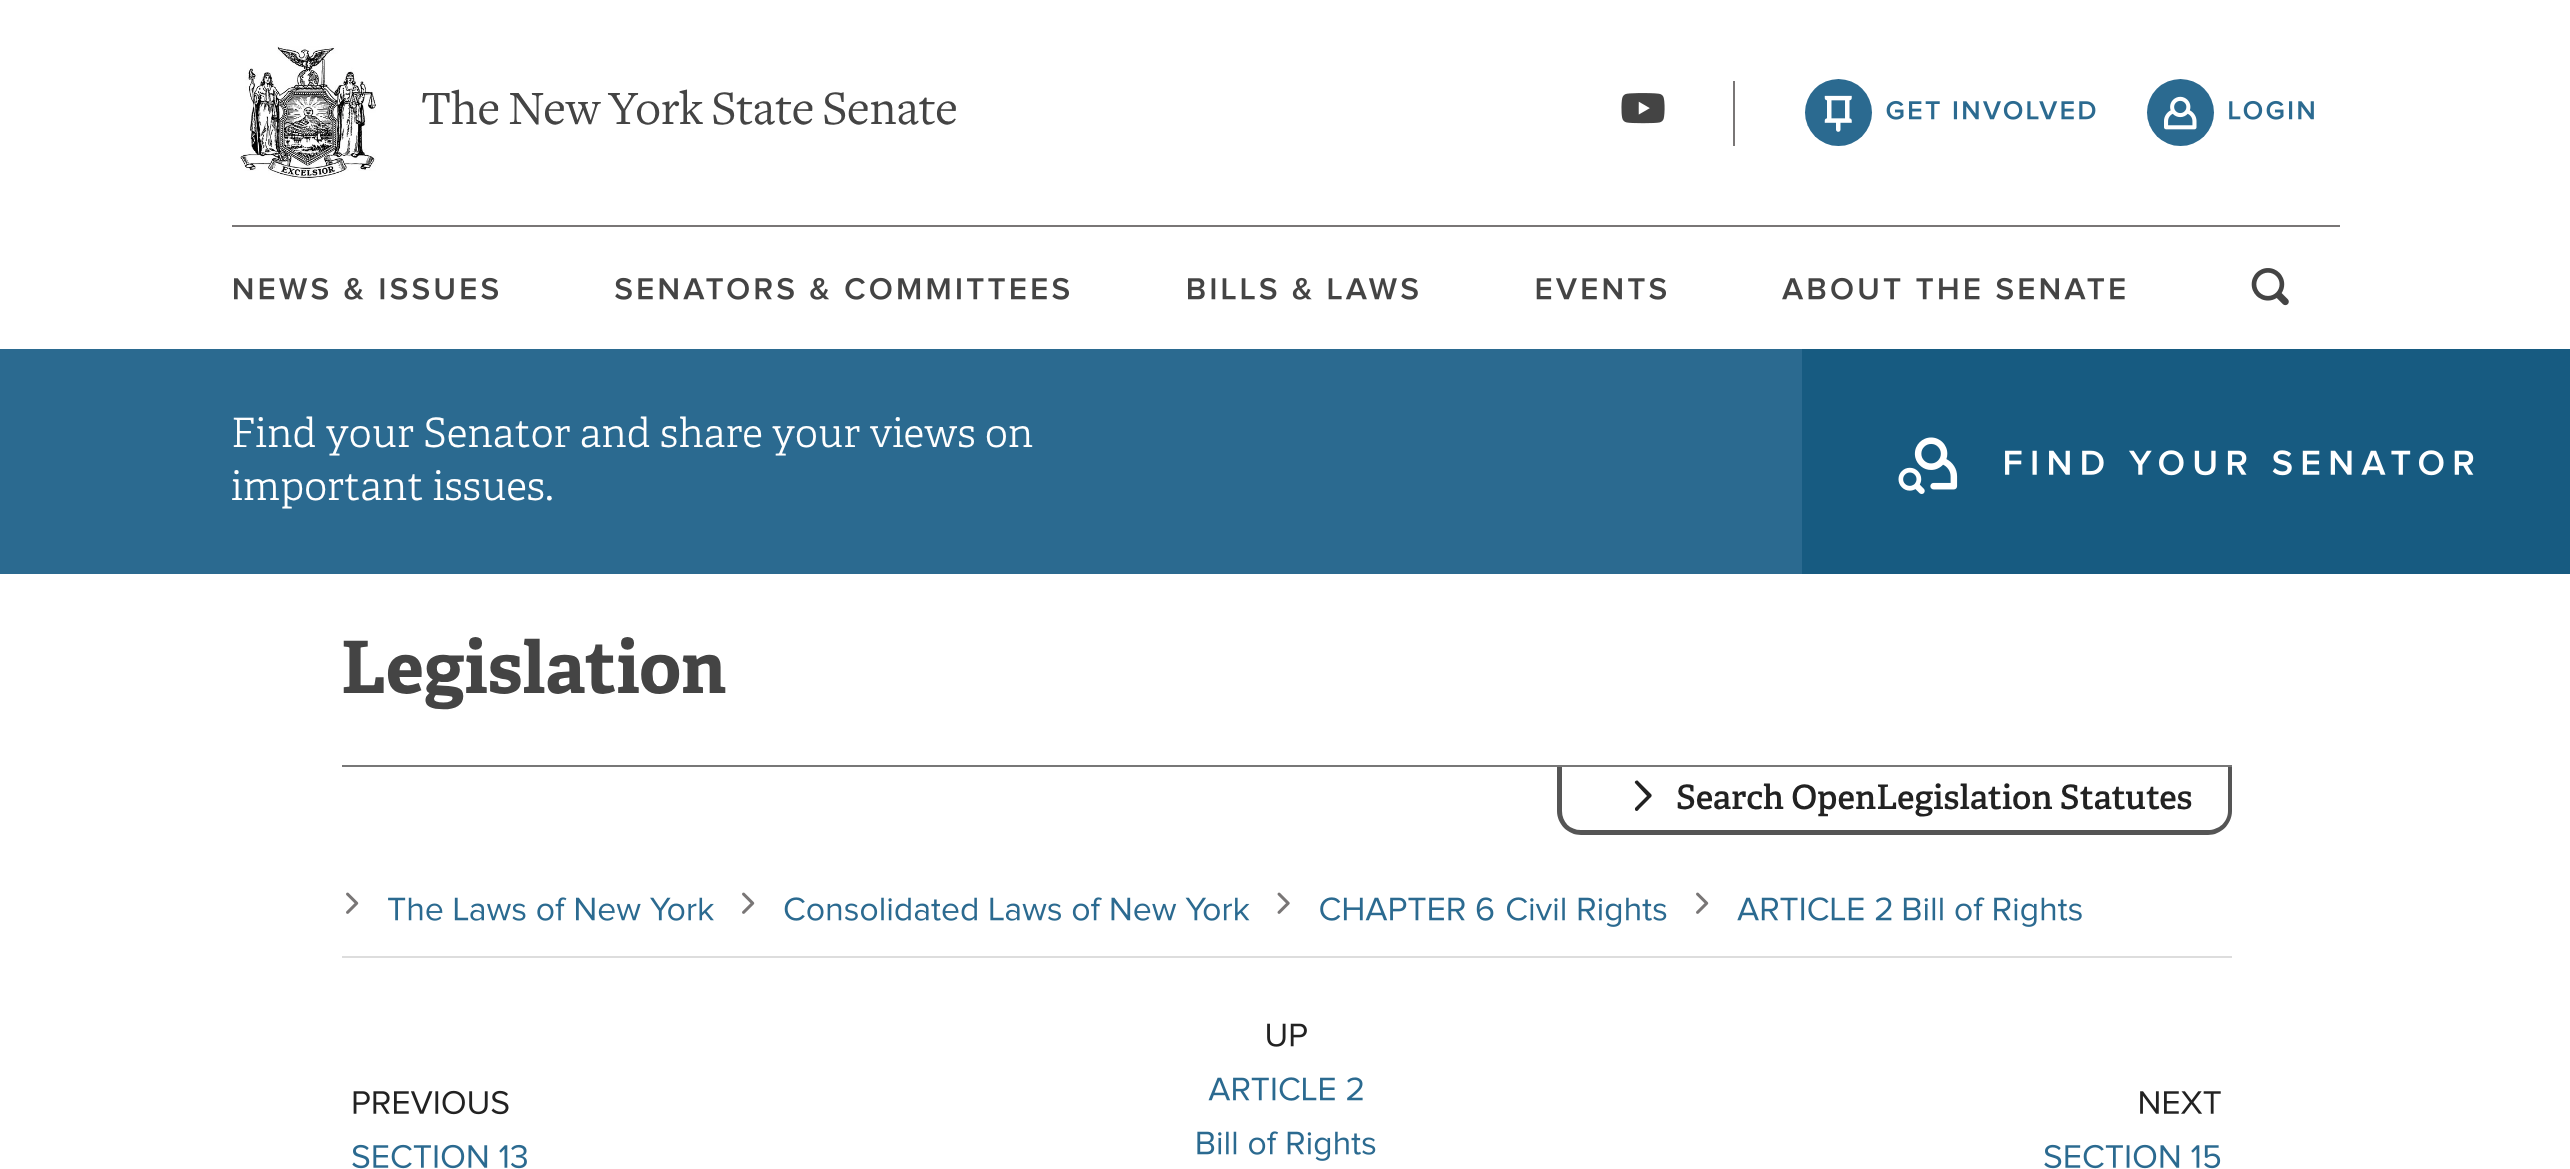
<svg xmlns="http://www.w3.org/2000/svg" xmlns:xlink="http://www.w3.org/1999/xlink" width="2570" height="1169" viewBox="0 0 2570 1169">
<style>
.cls-1{font:49.5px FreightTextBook;fill:#444444}
.cls-2{font:300 40.5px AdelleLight;fill:#ffffff}
.cls-3{font:bold 72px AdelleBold;fill:#444444}
.cls-4{font:600 33.75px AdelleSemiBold;fill:#222222}
</style>
<rect width="100%" height="100%" fill="#ffffff"/>
<image xlink:href="image0.png" x="240" y="46" width="136" height="133"/>
<rect fill="#797676" x="1733" y="81" width="2" height="65"/>
<image xlink:href="image1.png" x="1621" y="93" width="44" height="31"/>
<circle fill="#2b6a90" cx="1838.5" cy="112.5" r="33.5"/>
<image xlink:href="image2.png" x="1824" y="95" width="28" height="37"/>
<image xlink:href="image3.png" x="1886" y="100" width="210" height="20"/>
<circle fill="#2b6a90" cx="2180.5" cy="112.5" r="33.5"/>
<image xlink:href="image4.png" x="2164" y="96" width="33" height="34"/>
<image xlink:href="image5.png" x="2229" y="100" width="85" height="20"/>
<rect fill="#797676" x="232" y="225" width="2108" height="2"/>
<image xlink:href="image6.png" x="234" y="277" width="264" height="23"/>
<image xlink:href="image7.png" x="615" y="277" width="454" height="23"/>
<image xlink:href="image8.png" x="1188" y="277" width="230" height="23"/>
<image xlink:href="image9.png" x="1536" y="277" width="130" height="23"/>
<image xlink:href="image10.png" x="1782" y="277" width="343" height="23"/>
<image xlink:href="image11.png" x="2251" y="268" width="38" height="38"/>
<rect fill="#2b6a90" x="0" y="349" width="1802" height="225"/>
<rect fill="#175b81" x="1802" y="349" width="768" height="225"/>
<image xlink:href="image12.png" x="1898" y="437" width="60" height="57"/>
<image xlink:href="image13.png" x="2005" y="450" width="469" height="26"/>
<rect fill="#777777" x="342" y="765" width="1890" height="2"/>
<path fill="#555555" fill-rule="evenodd" d="M1557 767H2232V811C2232 824 2221 835 2208 835H1581C1568 835 1557 824 1557 811ZM1562 767H2228V811C2228 822 2219 830 2208 830H1581C1570 830 1562 822 1562 811Z"/>
<path fill="#222222" d="M1595 817ZM1651 794L1638 781C1637 780 1634 781 1635 783L1647 796L1635 808V810C1637 813 1639 809 1640 808L1649 799C1650 798 1653 796 1651 794Z"/>
<rect fill="#dddddd" x="342" y="956" width="1890" height="2"/>
<image xlink:href="image14.png" x="346" y="892" width="13" height="22"/>
<image xlink:href="image15.png" x="388" y="897" width="326" height="24"/>
<image xlink:href="image14.png" x="742" y="892" width="13" height="22"/>
<image xlink:href="image16.png" x="784" y="897" width="466" height="24"/>
<image xlink:href="image17.png" x="1277" y="892" width="13" height="22"/>
<image xlink:href="image18.png" x="1320" y="897" width="174" height="24"/>
<image xlink:href="image19.png" x="1507" y="897" width="160" height="30"/>
<image xlink:href="image14.png" x="1696" y="892" width="13" height="22"/>
<image xlink:href="image20.png" x="1737" y="897" width="155" height="24"/>
<image xlink:href="image21.png" x="1903" y="897" width="179" height="30"/>
<image xlink:href="image22.png" x="353" y="1090" width="156" height="25"/>
<image xlink:href="image23.png" x="352" y="1144" width="175" height="25"/>
<image xlink:href="image24.png" x="1267" y="1023" width="40" height="24"/>
<image xlink:href="image25.png" x="1208" y="1077" width="155" height="24"/>
<image xlink:href="image26.png" x="1197" y="1131" width="179" height="30"/>
<image xlink:href="image27.png" x="2140" y="1091" width="81" height="23"/>
<image xlink:href="image28.png" x="2044" y="1144" width="177" height="25"/>
<text class="cls-1" x="421" y="124">The New York State Senate</text>
<text class="cls-2"><tspan x="231" y="447">Find your Senator and share your views on</tspan><tspan x="231" y="500">important issues.</tspan></text>
<text class="cls-3" x="341" y="693">Legislation</text>
<text class="cls-4" x="1676" y="809">Search OpenLegislation Statutes</text>
</svg>
